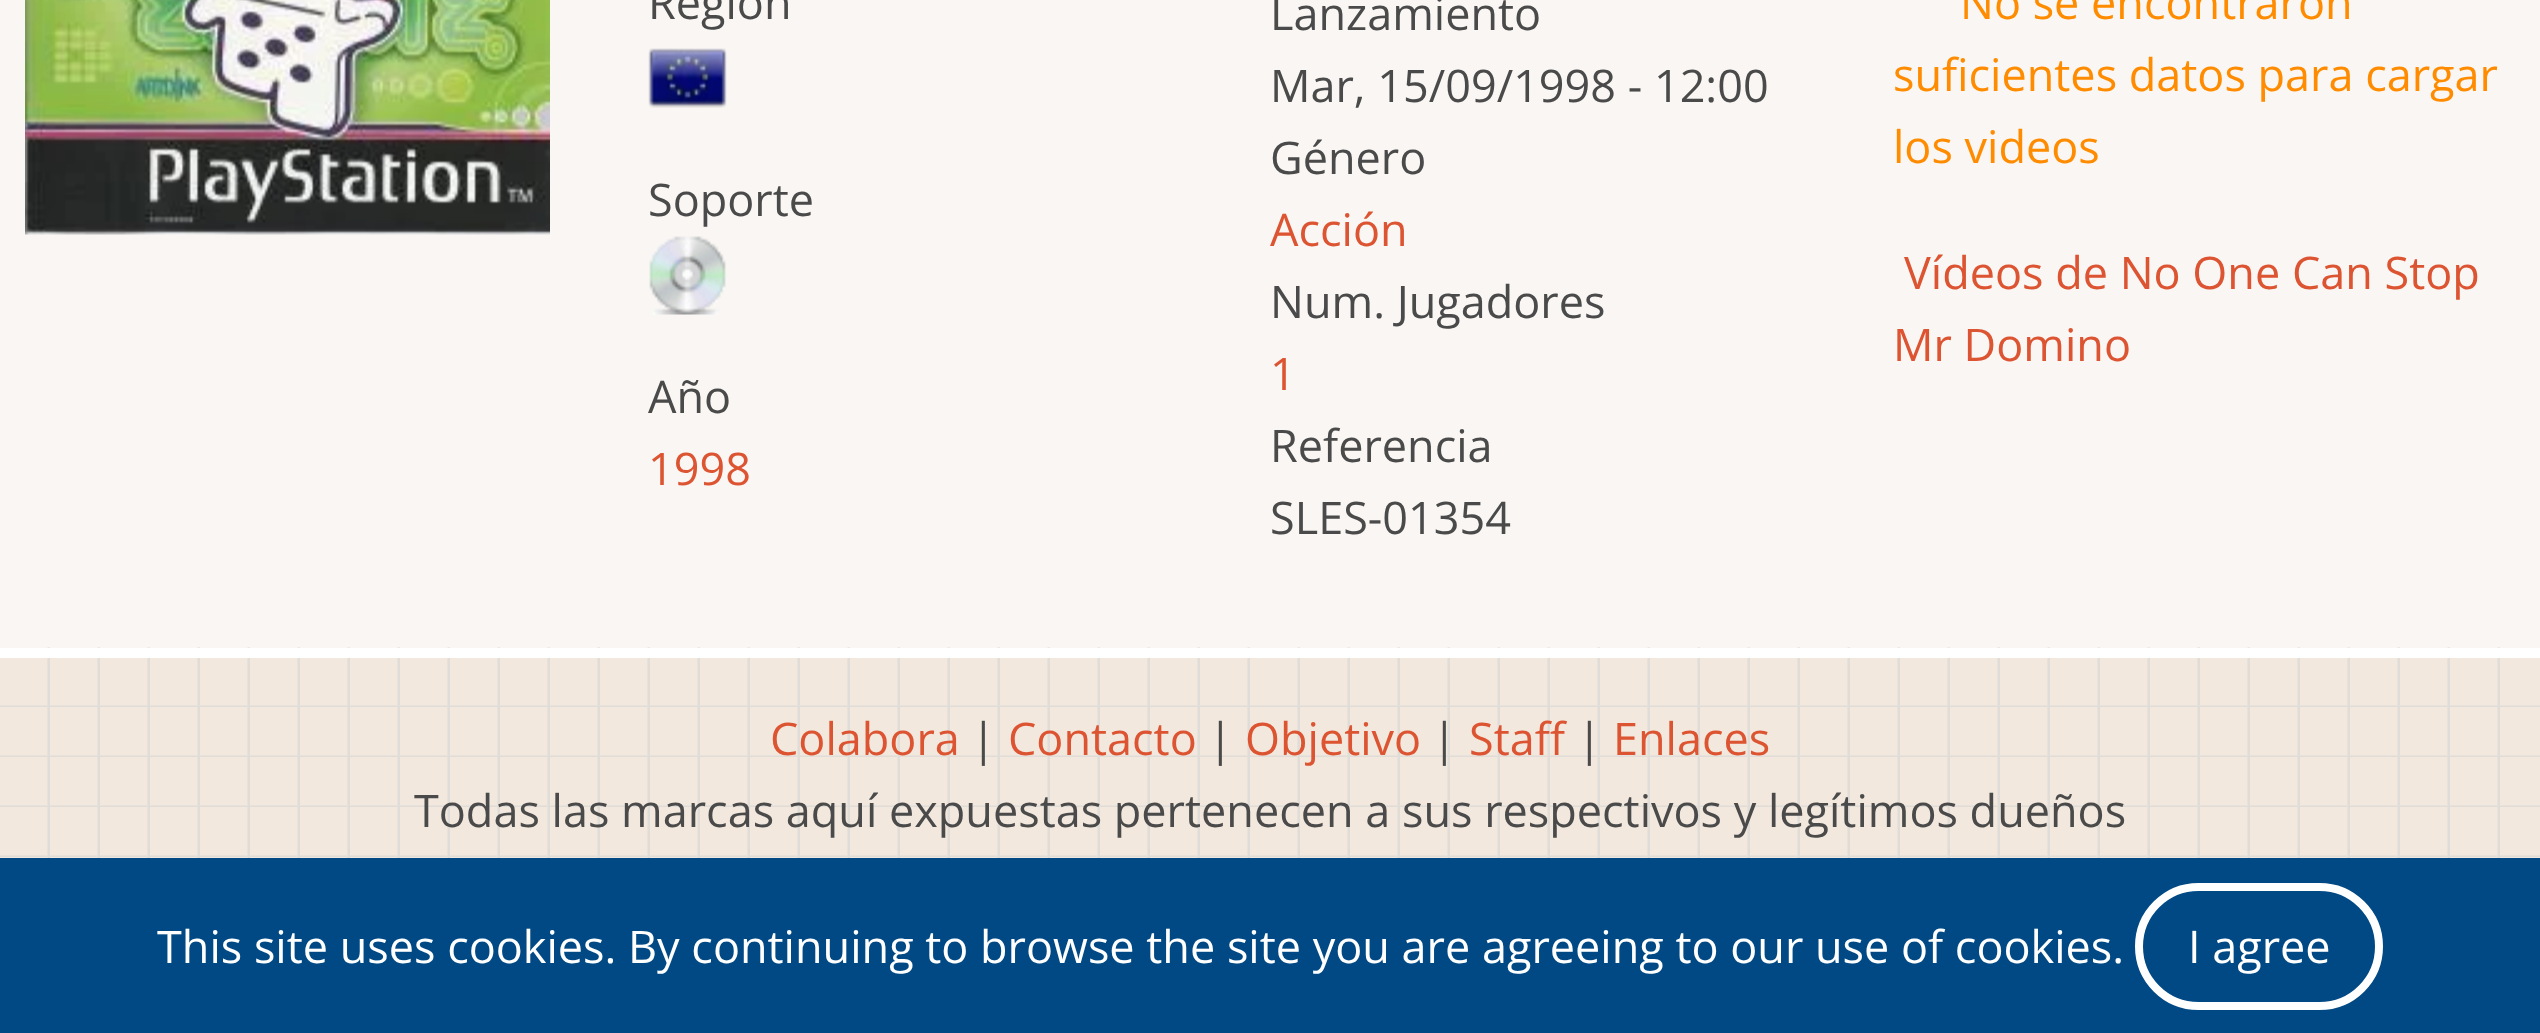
<svg xmlns="http://www.w3.org/2000/svg" xmlns:xlink="http://www.w3.org/1999/xlink" width="2540" height="1033" viewBox="0 0 2540 1033">
<style>
.cls-1{font:45px Open Sans;fill:#4a4a4a}
.cls-2{font:45px Open Sans;fill:#dc5431}
.cls-3{font:45px Open Sans;fill:#ff8c00}
.cls-4{font:45px Open Sans;fill:#ffffff}
</style>
<rect width="100%" height="100%" fill="#f9f6f3"/>
<image xlink:href="image0.png" x="25" y="0" width="525" height="235"/>
<image xlink:href="image1.png" x="648" y="48" width="79" height="60"/>
<image xlink:href="image2.png" x="649" y="236" width="77" height="79"/>
<rect fill="#f2e8dd" x="0" y="658" width="2540" height="200"/>
<image xlink:href="image3.png" x="0" y="647" width="2540" height="211"/>
<rect fill="#ffffff" x="0" y="648" width="2540" height="10"/>
<rect fill="#004984" x="0" y="858" width="2540" height="175"/>
<rect fill="none" stroke="#ffffff" stroke-width="8" x="2139" y="887" width="240" height="119" rx="59.5"/>
<text class="cls-1" x="648" y="19">Región</text>
<text class="cls-1" x="648" y="216">Soporte</text>
<text class="cls-1" x="648" y="413">Año</text>
<text class="cls-2" x="648" y="485">1998</text>
<text class="cls-1"><tspan x="1270" y="30">Lanzamiento</tspan><tspan x="1270" y="102">Mar, 15/09/1998 - 12:00</tspan><tspan x="1270" y="174">Género</tspan></text>
<text class="cls-2" x="1270" y="246">Acción</text>
<text class="cls-1" x="1270" y="318">Num. Jugadores</text>
<text class="cls-2" x="1270" y="390">1</text>
<text class="cls-1"><tspan x="1270" y="462">Referencia</tspan><tspan x="1270" y="534">SLES-01354</tspan></text>
<text class="cls-3" x="1960" y="19">No se encontraron</text>
<text class="cls-3"><tspan x="1893" y="91">suficientes datos para cargar</tspan><tspan x="1893" y="163">los videos</tspan></text>
<text class="cls-2" x="1904" y="289">Vídeos de No One Can Stop</text>
<text class="cls-2" x="1893" y="361">Mr Domino</text>
<text class="cls-2" x="770" y="755">Colabora</text>
<text class="cls-1" x="971" y="755">|</text>
<text class="cls-2" x="1008" y="755">Contacto</text>
<text class="cls-1" x="1208" y="755">|</text>
<text class="cls-2" x="1245" y="755">Objetivo</text>
<text class="cls-1" x="1432" y="755">|</text>
<text class="cls-2" x="1469" y="755">Staff</text>
<text class="cls-1" x="1577" y="755">|</text>
<text class="cls-2" x="1613" y="755">Enlaces</text>
<text class="cls-1" x="414" y="827">Todas las marcas aquí expuestas pertenecen a sus respectivos y legítimos dueños</text>
<text class="cls-4" x="157" y="963">This site uses cookies. By continuing to browse the site you are agreeing to our use of cookies.</text>
<text class="cls-4" x="2188" y="963">I agree</text>
</svg>
